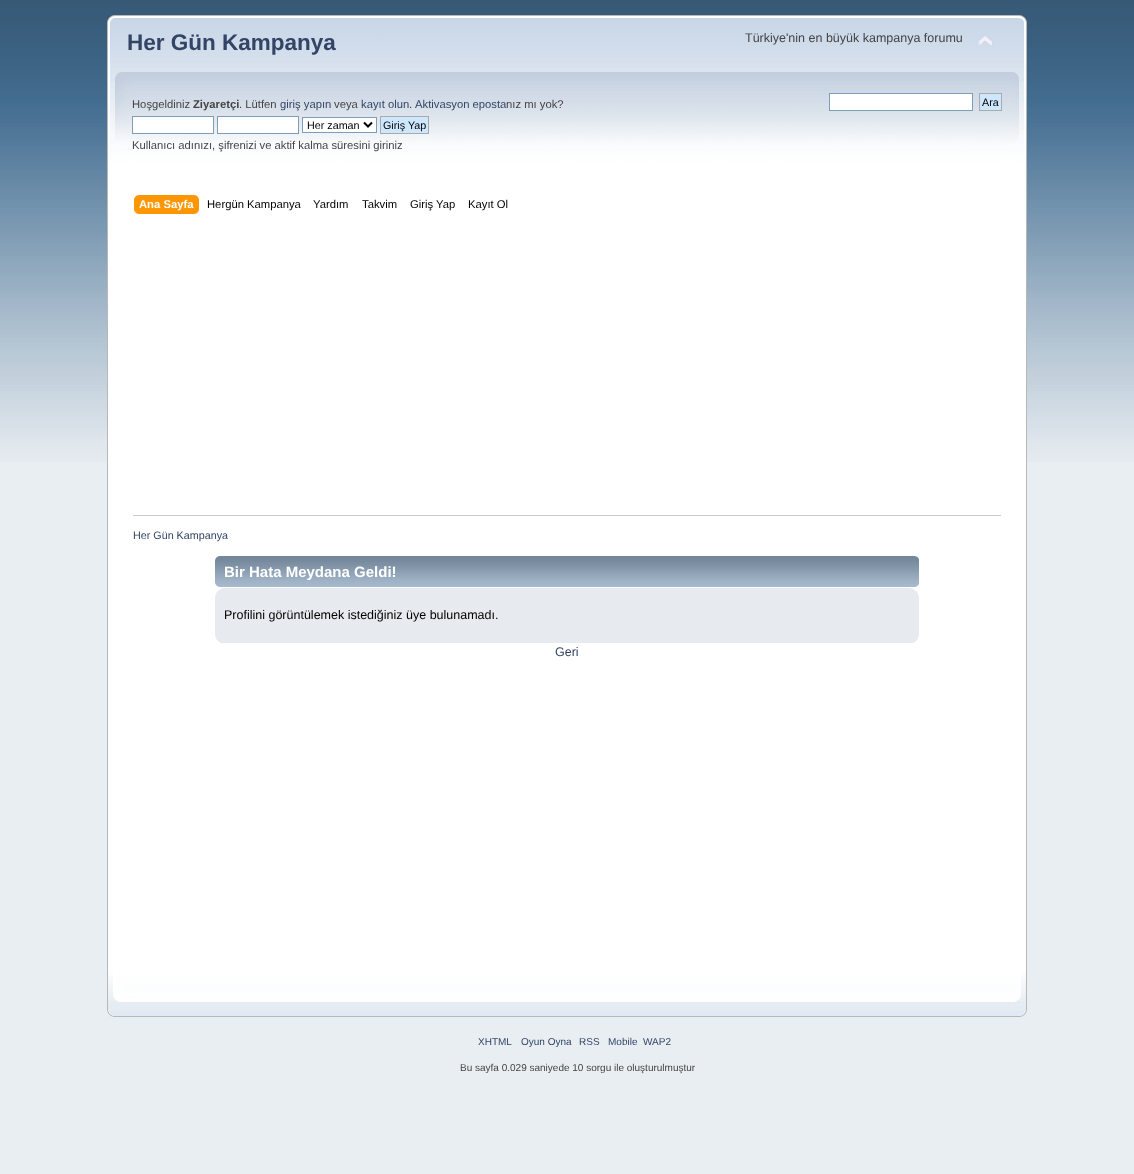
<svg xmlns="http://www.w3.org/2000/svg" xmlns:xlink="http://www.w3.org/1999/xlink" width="1134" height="1174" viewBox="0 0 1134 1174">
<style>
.cls-1{font:bold 22.5px Liberation Sans;fill:#334466}
.cls-2{font:12.5px Liberation Sans;fill:#444444}
.cls-3{font:11.25px Liberation Sans;fill:#444444}
.cls-4{font:bold 11.25px Liberation Sans;fill:#444444}
.cls-5{font:11.25px Liberation Sans;fill:#334466}
.cls-6{font:10.75px Liberation Sans;fill:#000000}
.cls-7{font:bold 11.25px Liberation Sans;fill:#ffffff}
.cls-8{font:11.25px Liberation Sans;fill:#000000}
.cls-9{font:10.75px Liberation Sans;fill:#334466}
.cls-10{font:bold 15px Liberation Sans;fill:#ffffff}
.cls-11{font:12.5px Liberation Sans;fill:#000000}
.cls-12{font:12.5px Liberation Sans;fill:#334466}
.cls-13{font:10px Liberation Sans;fill:#334466}
.cls-14{font:10px Liberation Sans;fill:#444444}
</style>
<rect width="100%" height="100%" fill="#e9eef2"/>
<image xlink:href="image0.png" x="0" y="0" width="1134" height="462"/>
<image xlink:href="image1.png" x="107" y="15" width="906" height="214"/>
<image xlink:href="image2.png" x="1013" y="15" width="14" height="214"/>
<image xlink:href="image3.png" x="978" y="35" width="15" height="12"/>
<rect fill="#ffffff" stroke="#7f9db9" x="132.5" y="116.5" width="81" height="17"/>
<rect fill="#ffffff" stroke="#7f9db9" x="217.5" y="116.5" width="81" height="17"/>
<rect fill="#ffffff" stroke="#7f9db9" x="302.5" y="117.5" width="74" height="15"/>
<path fill="none" stroke="#000000" stroke-width="2" d="M364 122.5L368 126.5L372 122.5"/>
<rect fill="#cde7ff" stroke="#aaaaaa" x="380.5" y="116.5" width="48" height="17"/>
<rect fill="#ffffff" stroke="#7f9db9" x="829.5" y="93.5" width="143" height="17"/>
<rect fill="#cde7ff" stroke="#aaaaaa" x="979.5" y="93.5" width="22" height="17"/>
<image xlink:href="image4.png" x="139" y="195" width="60" height="19"/>
<image xlink:href="image5.png" x="134" y="195" width="5" height="19"/>
<rect fill="#ffffff" x="108" y="229" width="918" height="744"/>
<rect fill="#b7b7b7" x="107" y="229" width="1" height="744"/>
<rect fill="#b7b7b7" x="1026" y="229" width="1" height="744"/>
<rect fill="#cccccc" x="133" y="515" width="868" height="1"/>
<image xlink:href="image6.png" x="215" y="556" width="699" height="31"/>
<image xlink:href="image7.png" x="914" y="556" width="5" height="31"/>
<rect fill="#e7eaef" x="215" y="588" width="704" height="55"/>
<image xlink:href="image8.png" x="215" y="588" width="9" height="9"/>
<image xlink:href="image9.png" x="910" y="588" width="9" height="8"/>
<image xlink:href="image10.png" x="215" y="635" width="6" height="8"/>
<image xlink:href="image11.png" x="913" y="635" width="6" height="8"/>
<image xlink:href="image12.png" x="107" y="973" width="908" height="44"/>
<image xlink:href="image13.png" x="1015" y="973" width="12" height="44"/>
<text class="cls-1" x="127" y="50">Her Gün Kampanya</text>
<text class="cls-2" x="745" y="42">Türkiye'nin en büyük kampanya forumu</text>
<text class="cls-3" x="132" y="108">Hoşgeldiniz</text>
<text class="cls-4" x="193" y="108">Ziyaretçi</text>
<text class="cls-3" x="239" y="108">. Lütfen</text>
<text class="cls-5" x="280" y="108">giriş yapın</text>
<text class="cls-3" x="334" y="108">veya</text>
<text class="cls-5" x="361" y="108">kayıt olun</text>
<text class="cls-3" x="409" y="108">.</text>
<text class="cls-5" x="415" y="108">Aktivasyon eposta</text>
<text class="cls-3" x="506" y="108">nız mı yok?</text>
<text class="cls-6" x="307" y="129">Her zaman</text>
<text class="cls-6" x="383" y="129">Giriş Yap</text>
<text class="cls-3" x="132" y="149">Kullanıcı adınızı, şifrenizi ve aktif kalma süresini giriniz</text>
<text class="cls-6" x="982" y="106">Ara</text>
<text class="cls-7" x="139" y="208">Ana Sayfa</text>
<text class="cls-8" x="207" y="208">Hergün Kampanya</text>
<text class="cls-8" x="313" y="208">Yardım</text>
<text class="cls-8" x="362" y="208">Takvim</text>
<text class="cls-8" x="410" y="208">Giriş Yap</text>
<text class="cls-8" x="468" y="208">Kayıt Ol</text>
<text class="cls-9" x="133" y="539">Her Gün Kampanya</text>
<text class="cls-10" x="224" y="577">Bir Hata Meydana Geldi!</text>
<text class="cls-11" x="224" y="619">Profilini görüntülemek istediğiniz üye bulunamadı.</text>
<text class="cls-12" x="555" y="656">Geri</text>
<text class="cls-13" x="478" y="1045">XHTML</text>
<text class="cls-13" x="521" y="1045">Oyun Oyna</text>
<text class="cls-13" x="579" y="1045">RSS</text>
<text class="cls-13" x="608" y="1045">Mobile</text>
<text class="cls-13" x="643" y="1045">WAP2</text>
<text class="cls-14" x="460" y="1071">Bu sayfa 0.029 saniyede 10 sorgu ile oluşturulmuştur</text>
</svg>
